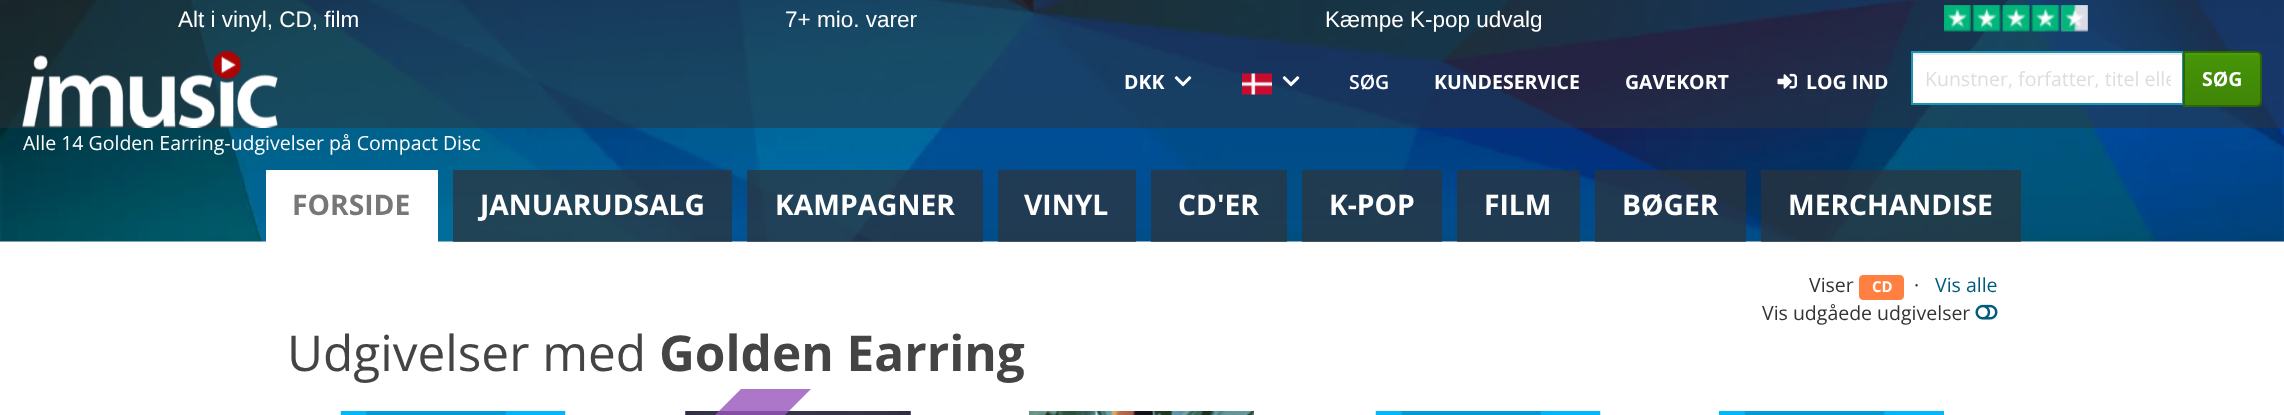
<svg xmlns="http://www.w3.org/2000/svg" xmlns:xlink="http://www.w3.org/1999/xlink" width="2284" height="415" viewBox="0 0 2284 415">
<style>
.cls-1{font:22.5px Liberation Sans;fill:#ffffff}
.cls-2{font:bold 19.5px Open Sans;fill:#ffffff}
.cls-3{font:600 19.5px Open Sans;fill:#ffffff}
.cls-4{font:19.5px Open Sans;fill:#dddddd}
.cls-5{font:19.5px Open Sans;fill:#ffffff}
.cls-6{font:bold 28.25px Open Sans;fill:#777777}
.cls-7{font:bold 28.25px Open Sans;fill:#ffffff}
.cls-8{font:19.5px Open Sans;fill:#333333}
.cls-9{font:bold 15px Open Sans;fill:#ffffff}
.cls-10{font:19.5px Open Sans;fill:#015b7b}
.cls-11{font:49.5px Open Sans;fill:#444444}
.cls-12{font:bold 49.5px Open Sans;fill:#444444}
</style>
<defs>
<linearGradient id="g1" gradientUnits="userSpaceOnUse" x1="2222" y1="53" x2="2222" y2="105"><stop offset="0" stop-color="#4da309"/><stop offset="0.06" stop-color="#469408"/><stop offset="1" stop-color="#3f8507"/></linearGradient>
<clipPath id="clip1"><rect x="1925" y="65" width="246" height="27"/></clipPath>
</defs>
<rect width="100%" height="100%" fill="#ffffff"/>
<image xlink:href="image0.png" x="0" y="0" width="2284" height="242"/>
<rect fill="#2d3339" fill-opacity="0.5" x="0" y="0" width="2284" height="128"/>
<image xlink:href="image1.png" x="1944" y="5" width="144" height="27"/>
<image xlink:href="image2.png" x="22" y="50" width="256" height="78"/>
<image xlink:href="image3.png" x="1174" y="76" width="18" height="11"/>
<image xlink:href="image4.png" x="1242" y="73" width="30" height="22"/>
<image xlink:href="image5.png" x="1282" y="76" width="18" height="11"/>
<image xlink:href="image6.png" x="1777" y="73" width="20" height="16"/>
<rect fill="#ffffff" x="1913" y="55" width="269" height="48"/>
<rect fill="#ececec" x="1913" y="53" width="270" height="2"/>
<rect fill="none" stroke="#1993b6" stroke-width="2" x="1912" y="52" width="271" height="52"/>
<rect fill="url(#g1)" x="2185" y="53" width="76" height="52"/>
<path fill="none" stroke="#2f6405" stroke-width="2" d="M2184 52H2256C2259 52 2261 54 2261 57V101C2261 104 2259 106 2256 106H2184Z"/>
<rect fill="#ffffff" x="266" y="170" width="172" height="72"/>
<rect fill="#2d3339" fill-opacity="0.7" x="453" y="170" width="279" height="72"/>
<rect fill="#2d3339" fill-opacity="0.7" x="747" y="170" width="236" height="72"/>
<rect fill="#2d3339" fill-opacity="0.7" x="998" y="170" width="138" height="72"/>
<rect fill="#2d3339" fill-opacity="0.7" x="1151" y="170" width="136" height="72"/>
<rect fill="#2d3339" fill-opacity="0.7" x="1302" y="170" width="140" height="72"/>
<rect fill="#2d3339" fill-opacity="0.7" x="1457" y="170" width="123" height="72"/>
<rect fill="#2d3339" fill-opacity="0.7" x="1595" y="170" width="151" height="72"/>
<rect fill="#2d3339" fill-opacity="0.7" x="1761" y="170" width="260" height="72"/>
<path fill="#ff8040" d="M1863 275H1872V300H1863C1861 300 1859 298 1859 296V279C1859 277 1861 275 1863 275Z"/>
<path fill="#ff8040" d="M1872 275H1900C1902 275 1904 277 1904 279V296C1904 298 1902 300 1900 300H1872Z"/>
<image xlink:href="image7.png" x="1975" y="304" width="23" height="16"/>
<image xlink:href="image8.png" x="340" y="411" width="226" height="4"/>
<image xlink:href="image9.png" x="685" y="411" width="226" height="4"/>
<image xlink:href="image10.png" x="685" y="411" width="226" height="4"/>
<path fill="#9955bb" fill-opacity="0.8" d="M811 389L641 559V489L741 389Z"/>
<image xlink:href="image11.png" x="1029" y="411" width="225" height="4"/>
<image xlink:href="image8.png" x="1375" y="411" width="226" height="4"/>
<image xlink:href="image12.png" x="1719" y="411" width="225" height="4"/>
<text class="cls-1" x="178" y="27">Alt i vinyl, CD, film</text>
<text class="cls-1" x="785" y="27">7+ mio. varer</text>
<text class="cls-1" x="1325" y="27">Kæmpe K-pop udvalg</text>
<text class="cls-2" x="1124" y="89">DKK</text>
<text class="cls-3" x="1349" y="89">SØG</text>
<text class="cls-2" x="1434" y="89">KUNDESERVICE</text>
<text class="cls-2" x="1625" y="89">GAVEKORT</text>
<text class="cls-2" x="1806" y="89">LOG IND</text>
<g clip-path="url(#clip1)">
<text class="cls-4" x="1925" y="86">Kunstner, forfatter, titel elle</text>
</g>
<text class="cls-2" x="2202" y="86">SØG</text>
<text class="cls-5" x="23" y="150">Alle 14 Golden Earring-udgivelser på Compact Disc</text>
<text class="cls-6" x="292" y="215">FORSIDE</text>
<text class="cls-7" x="480" y="215">JANUARUDSALG</text>
<text class="cls-7" x="775" y="215">KAMPAGNER</text>
<text class="cls-7" x="1024" y="215">VINYL</text>
<text class="cls-7" x="1178" y="215">CD'ER</text>
<text class="cls-7" x="1329" y="215">K-POP</text>
<text class="cls-7" x="1484" y="215">FILM</text>
<text class="cls-7" x="1622" y="215">BØGER</text>
<text class="cls-7" x="1788" y="215">MERCHANDISE</text>
<text class="cls-8" x="1809" y="292">Viser</text>
<text class="cls-9" x="1872" y="292">CD</text>
<text class="cls-8" x="1914" y="292">·</text>
<text class="cls-10" x="1935" y="292">Vis alle</text>
<text class="cls-8" x="1762" y="320">Vis udgåede udgivelser</text>
<text class="cls-11" x="287" y="371">Udgivelser med</text>
<text class="cls-12" x="659" y="371">Golden Earring</text>
</svg>
